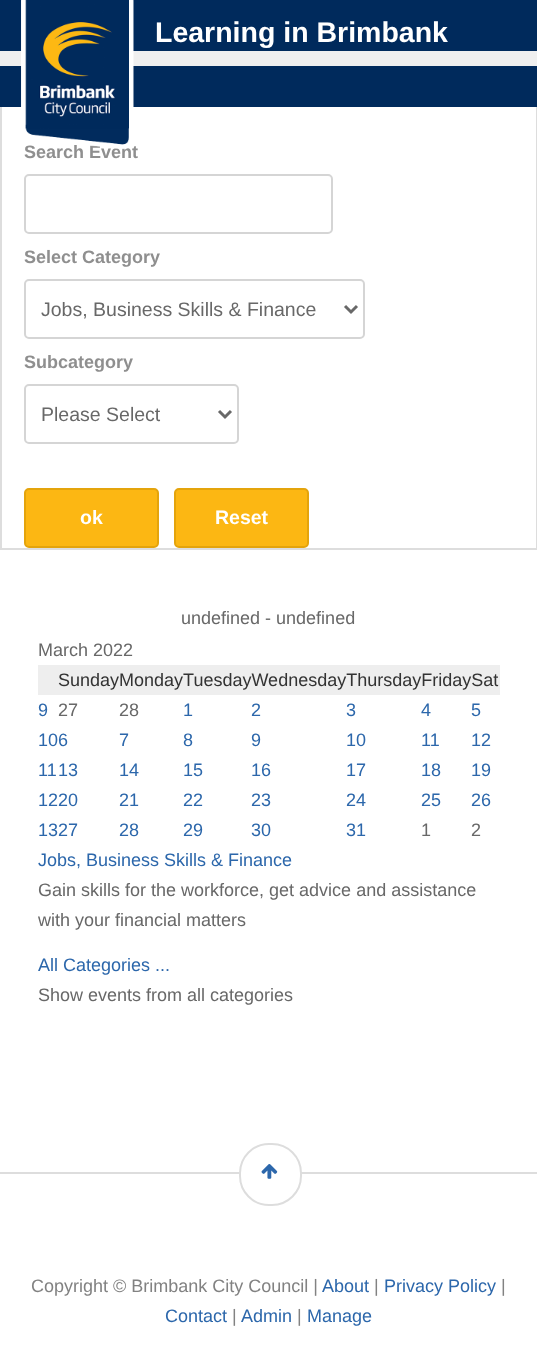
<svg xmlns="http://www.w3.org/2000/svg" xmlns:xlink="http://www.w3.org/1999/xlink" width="537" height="1358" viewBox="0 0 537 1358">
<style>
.cls-1{font:bold 28.5px Liberation Sans;fill:#ffffff}
.cls-2{font:bold 18px Liberation Sans;fill:#8f8f8f}
.cls-3{font:19.5px Liberation Sans;fill:#686868}
.cls-4{font:bold 19.5px Liberation Sans;fill:#ffffff}
.cls-5{font:18px Liberation Sans;fill:#686868}
.cls-6{font:18px Liberation Sans;fill:#333333}
.cls-7{font:18px Liberation Sans;fill:#2c67ab}
.cls-8{font:18px Liberation Sans;fill:#828282}
</style>
<rect width="100%" height="100%" fill="#ffffff"/>
<rect fill="#002a5c" x="0" y="0" width="537" height="107"/>
<rect fill="#efefef" x="0" y="51" width="537" height="15"/>
<rect fill="#dddddd" x="536" y="107" width="1" height="442"/>
<rect fill="#dddddd" x="0" y="548" width="537" height="2"/>
<rect fill="#dddddd" x="0" y="107" width="2" height="442"/>
<rect fill="none" stroke="#d5d5d5" stroke-width="2" x="25" y="175" width="307" height="58" rx="4"/>
<rect fill="none" stroke="#d5d5d5" stroke-width="2" x="25" y="280" width="339" height="58" rx="4"/>
<path fill="none" stroke="#686868" stroke-width="3" d="M345 306L351 312L357 306"/>
<rect fill="none" stroke="#d5d5d5" stroke-width="2" x="25" y="385" width="213" height="58" rx="4"/>
<path fill="none" stroke="#686868" stroke-width="3" d="M219 411L225 417L231 411"/>
<rect fill="#fcb713" stroke="#e4a40c" stroke-width="2" x="25" y="489" width="133" height="58" rx="4"/>
<rect fill="#fcb713" stroke="#e4a40c" stroke-width="2" x="175" y="489" width="133" height="58" rx="4"/>
<rect fill="#eeeeee" x="38" y="665" width="462" height="30"/>
<rect fill="#dddddd" x="0" y="1172" width="537" height="2"/>
<rect fill="#ffffff" stroke="#dddddd" stroke-width="2" x="240" y="1144" width="61" height="61" rx="29"/>
<image xlink:href="image1.png" x="261" y="1164" width="17" height="15"/>
<text class="cls-1" x="155" y="42">Learning in Brimbank</text>
<text class="cls-2" x="24" y="158">Search Event</text>
<image xlink:href="image0.png" x="21" y="0" width="113" height="150"/>
<text class="cls-2" x="24" y="263">Select Category</text>
<text class="cls-3" x="41" y="316">Jobs, Business Skills &amp; Finance</text>
<text class="cls-2" x="24" y="368">Subcategory</text>
<text class="cls-3" x="41" y="421">Please Select</text>
<text class="cls-4" x="80" y="524">ok</text>
<text class="cls-4" x="215" y="524">Reset</text>
<text class="cls-5" x="181" y="624">undefined - undefined</text>
<text class="cls-5" x="38" y="656">March 2022</text>
<text class="cls-6" x="58" y="686">SundayMondayTuesdayWednesdayThursdayFridaySat</text>
<text class="cls-7" x="38" y="716">9</text>
<text class="cls-5" x="58" y="716">27</text>
<text class="cls-5" x="119" y="716">28</text>
<text class="cls-7" x="183" y="716">1</text>
<text class="cls-7" x="251" y="716">2</text>
<text class="cls-7" x="346" y="716">3</text>
<text class="cls-7" x="421" y="716">4</text>
<text class="cls-7" x="471" y="716">5</text>
<text class="cls-7" x="38" y="746">106</text>
<text class="cls-7" x="119" y="746">7</text>
<text class="cls-7" x="183" y="746">8</text>
<text class="cls-7" x="251" y="746">9</text>
<text class="cls-7" x="346" y="746">10</text>
<text class="cls-7" x="421" y="746">11</text>
<text class="cls-7" x="471" y="746">12</text>
<text class="cls-7" x="38" y="776">11</text>
<text class="cls-7" x="58" y="776">13</text>
<text class="cls-7" x="119" y="776">14</text>
<text class="cls-7" x="183" y="776">15</text>
<text class="cls-7" x="251" y="776">16</text>
<text class="cls-7" x="346" y="776">17</text>
<text class="cls-7" x="421" y="776">18</text>
<text class="cls-7" x="471" y="776">19</text>
<text class="cls-7" x="38" y="806">1220</text>
<text class="cls-7" x="119" y="806">21</text>
<text class="cls-7" x="183" y="806">22</text>
<text class="cls-7" x="251" y="806">23</text>
<text class="cls-7" x="346" y="806">24</text>
<text class="cls-7" x="421" y="806">25</text>
<text class="cls-7" x="471" y="806">26</text>
<text class="cls-7" x="38" y="836">1327</text>
<text class="cls-7" x="119" y="836">28</text>
<text class="cls-7" x="183" y="836">29</text>
<text class="cls-7" x="251" y="836">30</text>
<text class="cls-7" x="346" y="836">31</text>
<text class="cls-5" x="421" y="836">1</text>
<text class="cls-5" x="471" y="836">2</text>
<text class="cls-7" x="38" y="866">Jobs, Business Skills &amp; Finance</text>
<text class="cls-5"><tspan x="38" y="896">Gain skills for the workforce, get advice and assistance</tspan><tspan x="38" y="926">with your financial matters</tspan></text>
<text class="cls-7" x="38" y="971">All Categories ...</text>
<text class="cls-5" x="38" y="1001">Show events from all categories</text>
<text class="cls-8" x="31" y="1292">Copyright © Brimbank City Council |</text>
<text class="cls-7" x="322" y="1292">About</text>
<text class="cls-8" x="374" y="1292">|</text>
<text class="cls-7" x="384" y="1292">Privacy Policy</text>
<text class="cls-8" x="501" y="1292">|</text>
<text class="cls-7" x="165" y="1322">Contact</text>
<text class="cls-8" x="232" y="1322">|</text>
<text class="cls-7" x="241" y="1322">Admin</text>
<text class="cls-8" x="297" y="1322">|</text>
<text class="cls-7" x="307" y="1322">Manage</text>
</svg>
